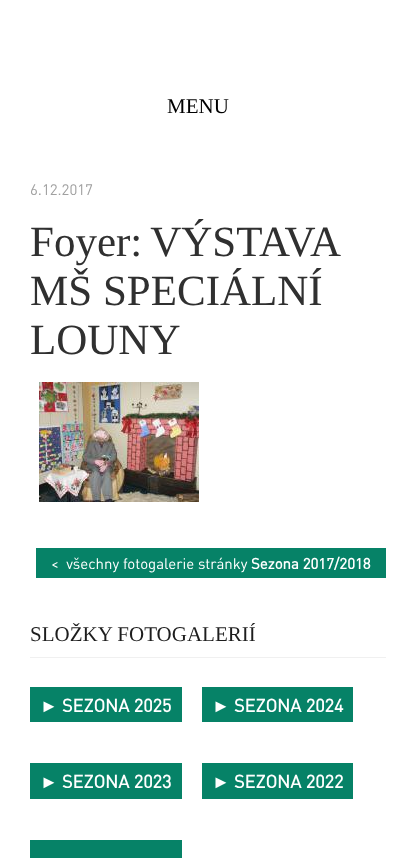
<svg xmlns="http://www.w3.org/2000/svg" xmlns:xlink="http://www.w3.org/1999/xlink" width="416" height="858" viewBox="0 0 416 858">
<style>
.cls-1{font:21px Liberation Serif;fill:#000000}
.cls-2{font:15px DIN;fill:#a0a0a0}
.cls-3{font:43px Liberation Serif;fill:#303030}
.cls-4{font:15px DIN;fill:#ffffff}
.cls-5{font:bold 15px DIN;fill:#ffffff}
.cls-6{font:21px Liberation Serif;fill:#1d1d1d}
.cls-7{font:bold 18px Liberation Sans;fill:#ffffff}
.cls-8{font:bold 18px DIN;fill:#ffffff}
</style>
<rect width="100%" height="100%" fill="#ffffff"/>
<image xlink:href="image0.png" x="39" y="382" width="160" height="120"/>
<rect fill="#068267" x="36" y="548" width="350" height="30"/>
<rect fill="#f0f0f0" x="30" y="657" width="356" height="1"/>
<rect fill="#068267" x="30" y="687" width="152" height="35"/>
<rect fill="#068267" x="202" y="687" width="151" height="35"/>
<rect fill="#068267" x="30" y="763" width="152" height="36"/>
<rect fill="#068267" x="202" y="763" width="151" height="36"/>
<rect fill="#068267" x="30" y="840" width="152" height="18"/>
<text class="cls-1" x="167" y="113">MENU</text>
<text class="cls-2" x="30" y="195">6.12.2017</text>
<text class="cls-3"><tspan x="30" y="256" word-spacing="-2">Foyer: VÝSTAVA</tspan><tspan x="30" y="305">MŠ SPECIÁLNÍ</tspan><tspan x="30" y="354">LOUNY</tspan></text>
<text class="cls-4" xml:space="preserve" x="51" y="569">&lt;  všechny fotogalerie stránky</text>
<text class="cls-5" x="251" y="569">Sezona 2017/2018</text>
<text class="cls-6" x="30" y="641">SLOŽKY FOTOGALERIÍ</text>
<text class="cls-7" x="40" y="712">►</text>
<text class="cls-8" x="62" y="712">SEZONA 2025</text>
<text class="cls-7" x="212" y="712">►</text>
<text class="cls-8" x="234" y="712">SEZONA 2024</text>
<text class="cls-7" x="40" y="788">►</text>
<text class="cls-8" x="62" y="788">SEZONA 2023</text>
<text class="cls-7" x="212" y="788">►</text>
<text class="cls-8" x="234" y="788">SEZONA 2022</text>
</svg>
